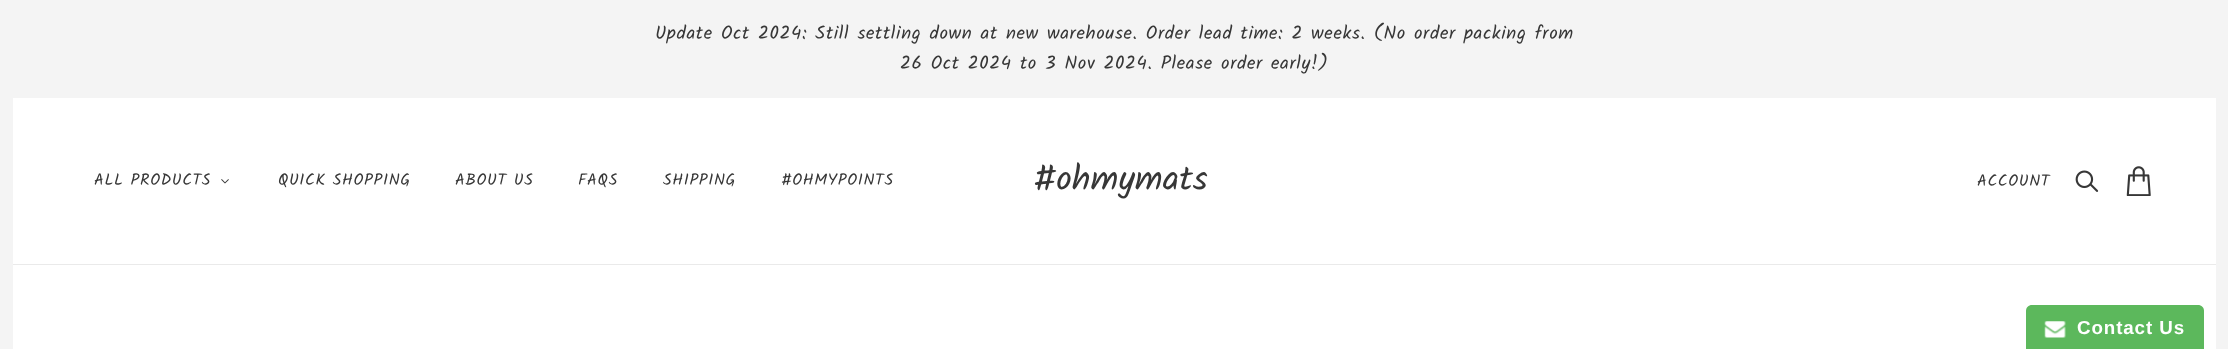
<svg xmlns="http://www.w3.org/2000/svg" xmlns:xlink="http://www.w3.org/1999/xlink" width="2228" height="349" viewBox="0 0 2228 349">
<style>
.cls-1{font:18.75px Kalam;letter-spacing:0.62px;fill:#373737}
.cls-2{font:16.25px Kalam;letter-spacing:0.62px;fill:#373737}
.cls-3{font:35px Kalam;fill:#373737}
.cls-4{font:bold 18.75px Liberation Sans;letter-spacing:0.9px;fill:#ffffff}
</style>
<rect width="100%" height="100%" fill="#ffffff"/>
<rect fill="none" stroke="#f4f4f4" stroke-width="13" x="6.5" y="6.5" width="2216" height="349"/>
<rect fill="#f4f4f4" x="13" y="13" width="2203" height="85"/>
<rect fill="#eaeaea" x="13" y="264" width="2203" height="1"/>
<image xlink:href="image0.png" x="221" y="179" width="8" height="5"/>
<image xlink:href="image1.png" x="2075" y="170" width="24" height="22"/>
<image xlink:href="image2.png" x="2126" y="166" width="25" height="30"/>
<path fill="#5cb85c" d="M2032 305H2198C2201.5 305 2204 307.5 2204 311V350H2026V311C2026 307.5 2028.5 305 2032 305Z"/>
<image xlink:href="image3.png" x="2044" y="321" width="22" height="17"/>
<text class="cls-1" x="655" y="39">Update Oct 2024: Still settling down at new warehouse. Order lead time: 2 weeks. (No order packing from</text>
<text class="cls-1" x="900" y="69">26 Oct 2024 to 3 Nov 2024. Please order early!)</text>
<text class="cls-2" x="94" y="185">ALL PRODUCTS</text>
<text class="cls-2" x="278" y="185">QUICK SHOPPING</text>
<text class="cls-2" x="455" y="185">ABOUT US</text>
<text class="cls-2" x="578" y="185">FAQS</text>
<text class="cls-2" x="663" y="185">SHIPPING</text>
<text class="cls-2" x="781" y="185">#OHMYPOINTS</text>
<text class="cls-3" x="1033" y="190">#ohmymats</text>
<text class="cls-2" x="1977" y="186">ACCOUNT</text>
<text class="cls-4" x="2077" y="334">Contact Us</text>
</svg>
